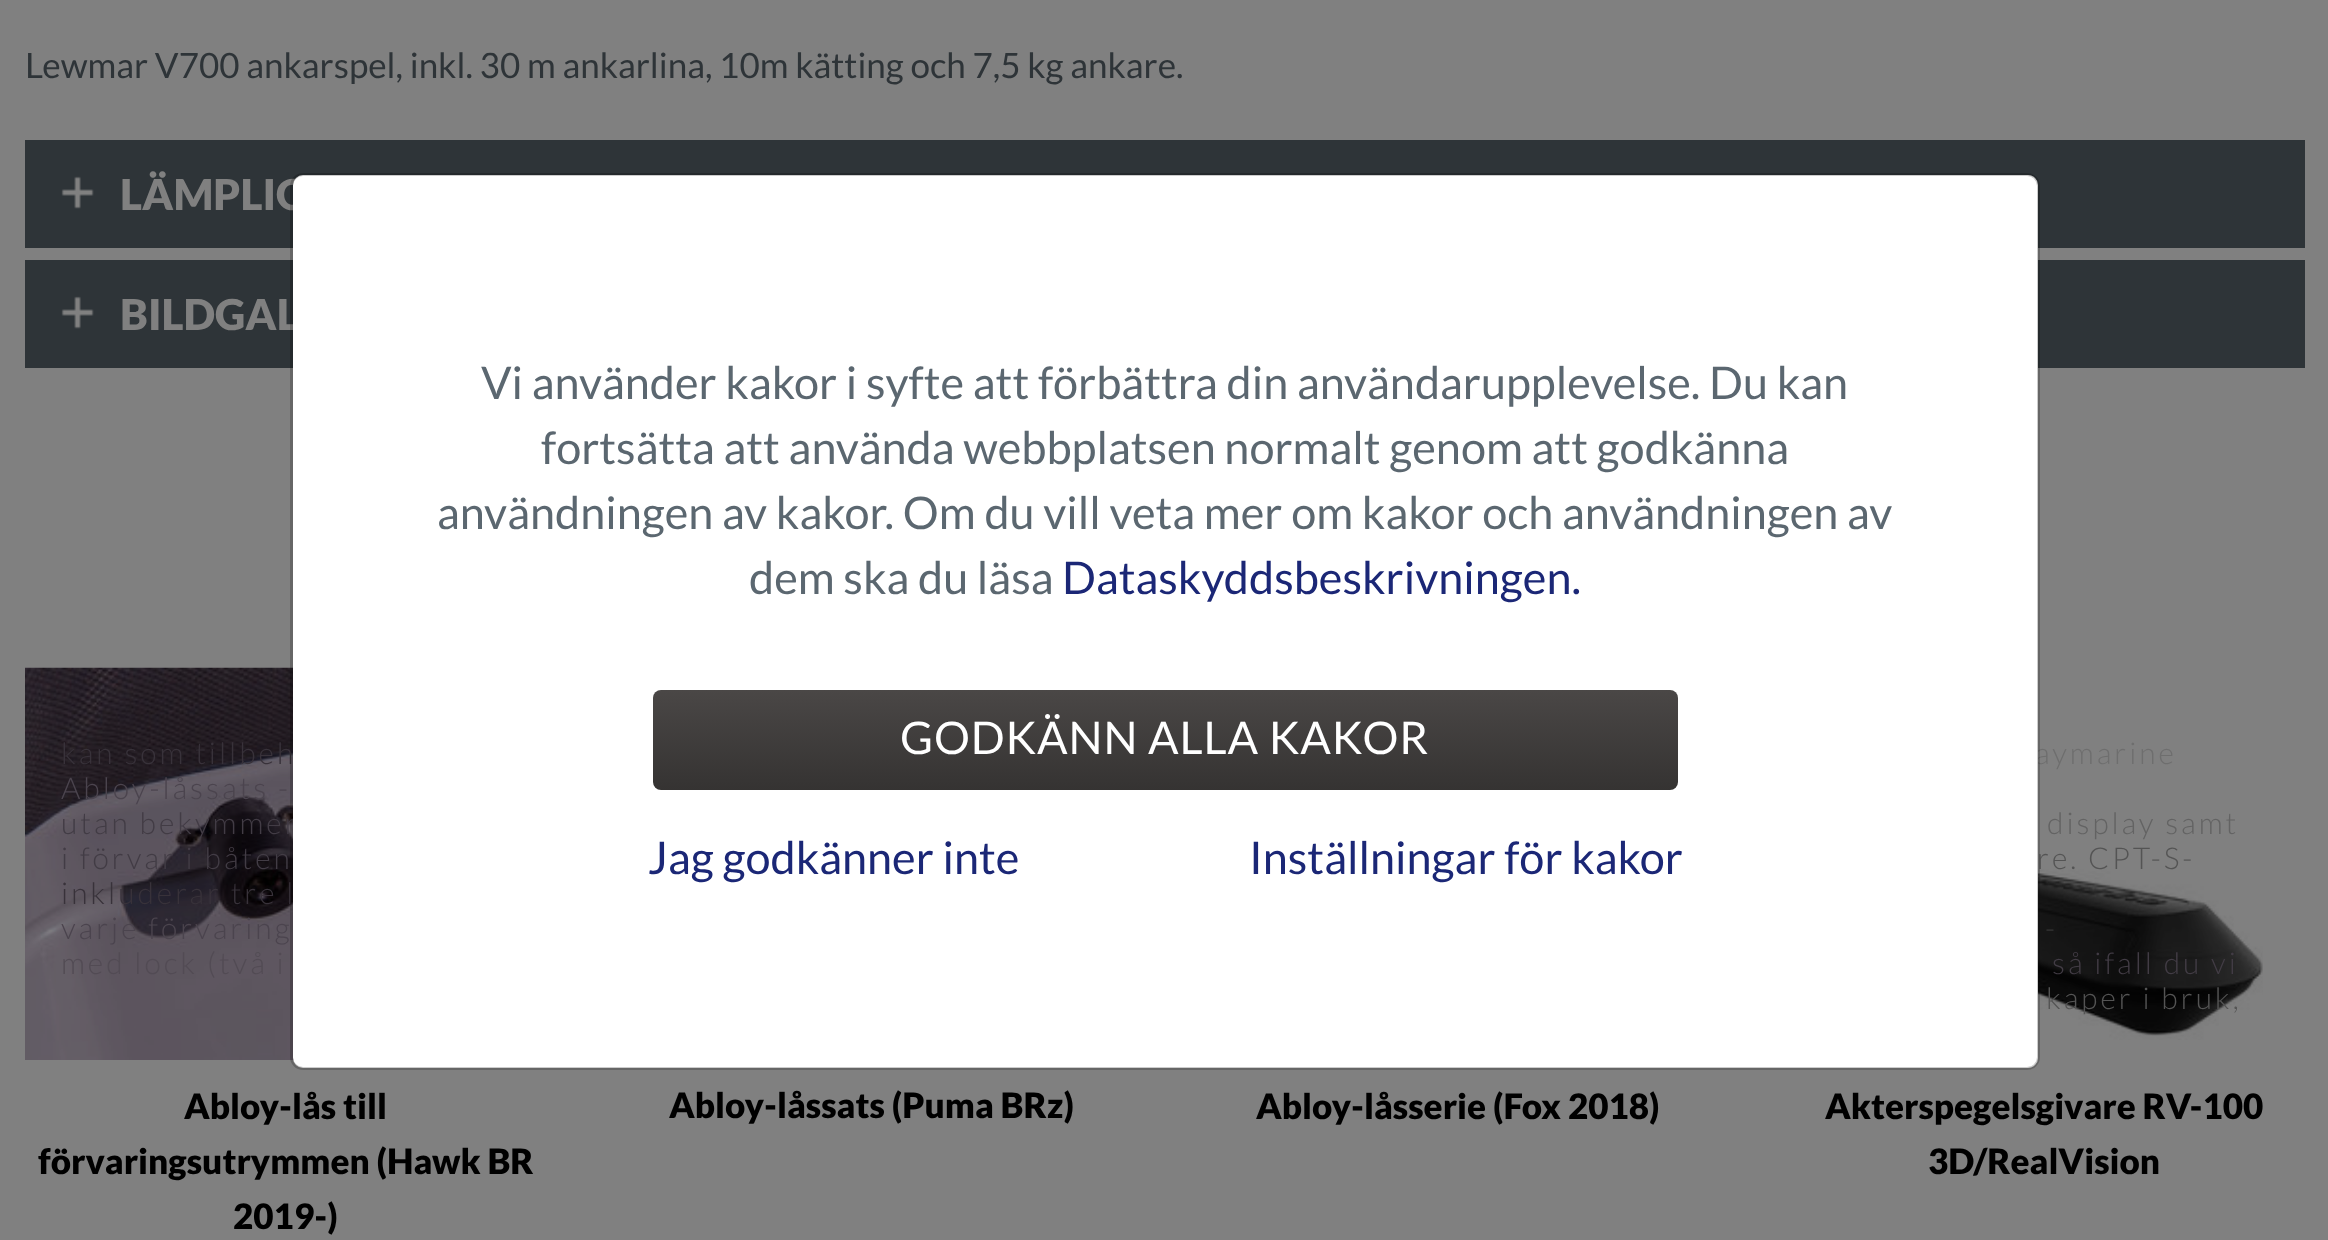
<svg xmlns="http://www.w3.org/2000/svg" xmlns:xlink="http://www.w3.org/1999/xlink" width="2328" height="1240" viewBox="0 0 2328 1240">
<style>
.cls-1{font:35px Lato;fill:#2e3438}
.cls-2{font:900 42.5px Lato;fill:#808080}
.cls-3{font:300 30px Lato;letter-spacing:3px;fill:#38323a}
.cls-4{font:300 30px Lato;letter-spacing:3px;fill:#4b444e}
.cls-5{font:300 30px Lato;letter-spacing:3px;fill:#423c45}
.cls-6{font:300 30px Lato;letter-spacing:3px;fill:#524b54}
.cls-7{font:900 35px Lato;fill:#000000}
.cls-8{font:300 30px Lato;letter-spacing:3px;fill:#6e6e6e}
.cls-9{font:300 30px Lato;letter-spacing:3px;fill:#636363}
.cls-10{font:300 30px Lato;letter-spacing:3px;fill:#545454}
.cls-11{font:300 30px Lato;letter-spacing:3px;fill:#383838}
.cls-12{font:45px Lato;fill:#5b6770}
.cls-13{font:45px Lato;fill:#1b2776}
.cls-14{font:45px Lato;letter-spacing:0.9px;fill:#ffffff}
</style>
<defs>
<linearGradient id="g1" gradientUnits="userSpaceOnUse" x1="1165" y1="690" x2="1165" y2="790"><stop offset="0" stop-color="#4a4746"/><stop offset="1" stop-color="#353332"/></linearGradient>
</defs>
<rect width="100%" height="100%" fill="#808080"/>
<rect fill="#2e3438" x="25" y="140" width="2280" height="108"/>
<image xlink:href="image0.png" x="61" y="176" width="33" height="33"/>
<rect fill="#2e3438" x="25" y="260" width="2280" height="108"/>
<image xlink:href="image1.png" x="61" y="296" width="33" height="33"/>
<image xlink:href="image2.png" x="25" y="667" width="269" height="393"/>
<image xlink:href="image3.png" x="2038" y="680" width="225" height="360"/>
<text class="cls-1" x="25" y="78">Lewmar V700 ankarspel, inkl. 30 m ankarlina, 10m kätting och 7,5 kg ankare.</text>
<text class="cls-2" x="120" y="210">LÄMPLIG</text>
<text class="cls-2" x="120" y="330">BILDGAL</text>
<text class="cls-3" x="61" y="764">kan som tillbeh</text>
<text class="cls-4" x="61" y="799">Abloy-låssats -</text>
<text class="cls-5"><tspan x="61" y="834">utan bekymmer</tspan><tspan x="61" y="869">i förvar i båten</tspan></text>
<text class="cls-3" x="61" y="904">inkluderar tre l</text>
<text class="cls-4" x="61" y="939">varje förvaring</text>
<text class="cls-6" x="61" y="974">med lock (två i</text>
<text class="cls-7" x="184" y="1119">Abloy-lås till</text>
<text class="cls-7" x="38" y="1174">förvaringsutrymmen (Hawk BR</text>
<text class="cls-7" x="233" y="1229">2019-)</text>
<text class="cls-7" x="669" y="1118">Abloy-låssats (Puma BRz)</text>
<text class="cls-7" x="1256" y="1119">Abloy-låsserie (Fox 2018)</text>
<text class="cls-8" x="2035" y="764">aymarine</text>
<text class="cls-9" x="2047" y="834">display samt</text>
<text class="cls-10" x="2037" y="869">re. CPT-S-</text>
<text class="cls-11" x="2045" y="939">-</text>
<text class="cls-5" x="2052" y="974">så ifall du vi</text>
<text class="cls-10" x="2046" y="1009">kaper i bruk,</text>
<text class="cls-7" x="1825" y="1119">Akterspegelsgivare RV-100</text>
<text class="cls-7" x="1928" y="1174">3D/RealVision</text>
<rect fill="#ffffff" x="293" y="175" width="1745" height="893" rx="10"/>
<rect fill="none" stroke="#000000" stroke-opacity="0.2" stroke-width="3" x="291.5" y="174.5" width="1747" height="894" rx="11.5"/>
<text class="cls-12" x="481" y="399">Vi använder kakor i syfte att förbättra din användarupplevelse. Du kan</text>
<text class="cls-12" x="541" y="464">fortsätta att använda webbplatsen normalt genom att godkänna</text>
<text class="cls-12" x="437" y="529">användningen av kakor. Om du vill veta mer om kakor och användningen av</text>
<text class="cls-12" x="749" y="594">dem ska du läsa</text>
<text class="cls-13" x="1062" y="594">Dataskyddsbeskrivningen.</text>
<rect fill="url(#g1)" x="653" y="690" width="1025" height="100" rx="8"/>
<text class="cls-14" x="900" y="754">GODKÄNN ALLA KAKOR</text>
<text class="cls-13" x="648" y="874">Jag godkänner inte</text>
<text class="cls-13" x="1249" y="874">Inställningar för kakor</text>
</svg>
